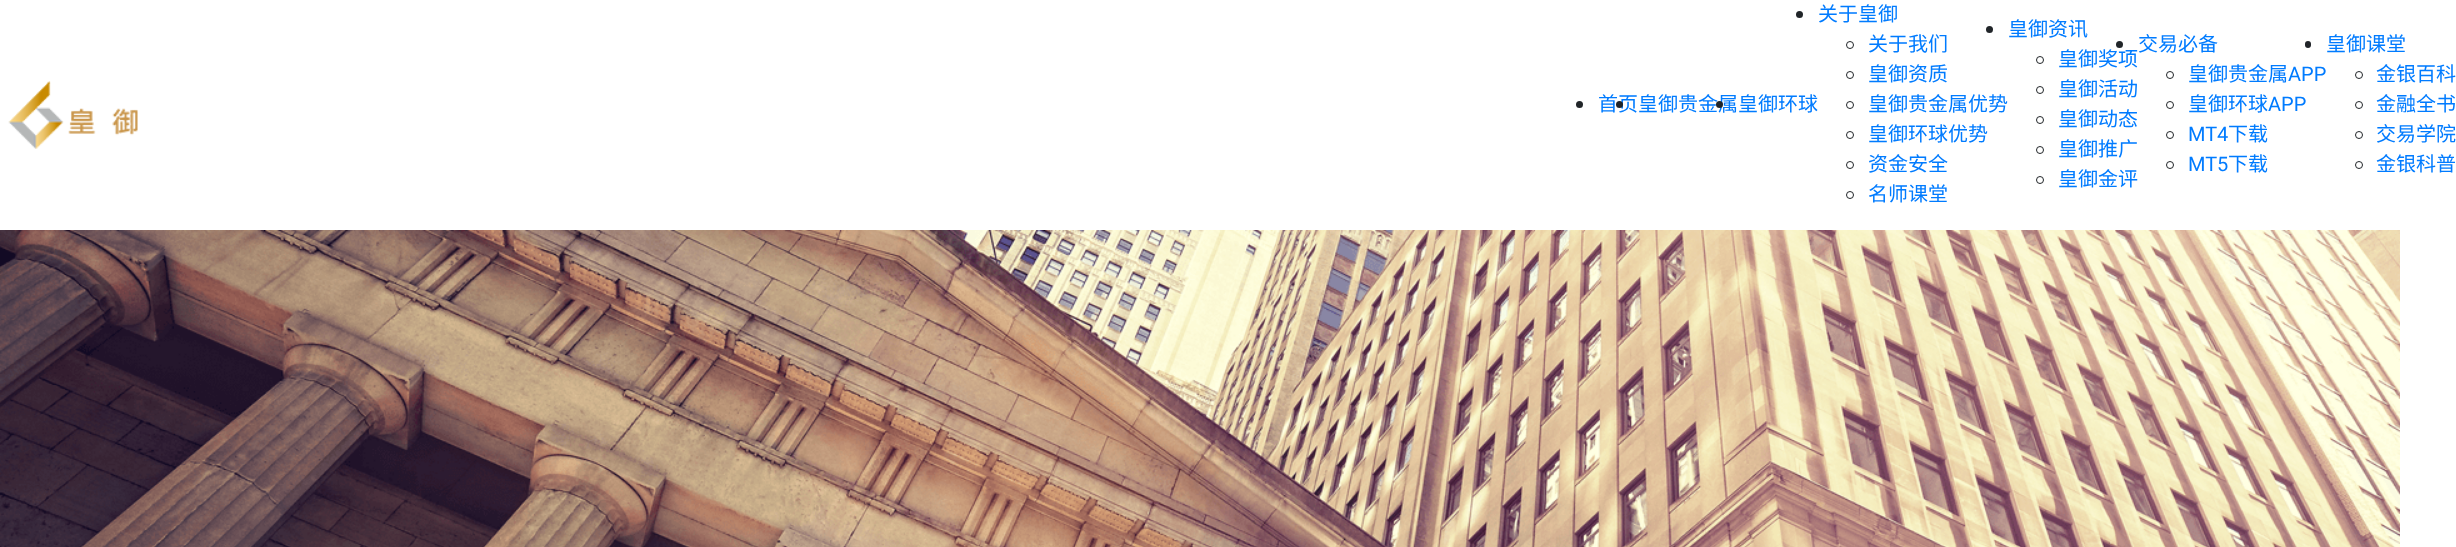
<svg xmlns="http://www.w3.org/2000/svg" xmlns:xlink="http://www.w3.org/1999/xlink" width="2456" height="547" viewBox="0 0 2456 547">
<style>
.cls-1{font:20px Noto Sans CJK SC;fill:#007bff}
.cls-2{font:20px Roboto;fill:#007bff}
</style>
<rect width="100%" height="100%" fill="#ffffff"/>
<image xlink:href="image0.png" x="8" y="81" width="130" height="68"/>
<circle fill="#212529" cx="1579.5" cy="104.5" r="3.5"/>
<circle fill="#212529" cx="1799.5" cy="14.5" r="3.5"/>
<circle fill="none" stroke="#212529" cx="1850" cy="45" r="3.5"/>
<circle fill="none" stroke="#212529" cx="1850" cy="75" r="3.5"/>
<circle fill="none" stroke="#212529" cx="1850" cy="105" r="3.5"/>
<circle fill="none" stroke="#212529" cx="1850" cy="135" r="3.5"/>
<circle fill="none" stroke="#212529" cx="1850" cy="165" r="3.5"/>
<circle fill="none" stroke="#212529" cx="1850" cy="195" r="3.5"/>
<circle fill="#212529" cx="1989.5" cy="29.5" r="3.5"/>
<circle fill="none" stroke="#212529" cx="2040" cy="60" r="3.5"/>
<circle fill="none" stroke="#212529" cx="2040" cy="90" r="3.5"/>
<circle fill="none" stroke="#212529" cx="2040" cy="120" r="3.5"/>
<circle fill="none" stroke="#212529" cx="2040" cy="150" r="3.5"/>
<circle fill="none" stroke="#212529" cx="2040" cy="180" r="3.5"/>
<circle fill="#212529" cx="2119.5" cy="44.5" r="3.5"/>
<circle fill="none" stroke="#212529" cx="2170" cy="75" r="3.5"/>
<circle fill="none" stroke="#212529" cx="2170" cy="105" r="3.5"/>
<circle fill="none" stroke="#212529" cx="2170" cy="135" r="3.5"/>
<circle fill="none" stroke="#212529" cx="2170" cy="165" r="3.5"/>
<rect fill="#212529" x="2305" y="41" width="6" height="7" rx="3"/>
<circle fill="none" stroke="#212529" cx="2359" cy="75" r="3.5"/>
<circle fill="none" stroke="#212529" cx="2359" cy="105" r="3.5"/>
<circle fill="none" stroke="#212529" cx="2359" cy="135" r="3.5"/>
<circle fill="none" stroke="#212529" cx="2359" cy="165" r="3.5"/>
<image xlink:href="image1.png" x="0" y="230" width="2400" height="317"/>
<text class="cls-1" x="1598" y="111">首页皇御贵金属皇御环球</text>
<text class="cls-1" x="1818" y="21">关于皇御</text>
<text class="cls-1"><tspan x="1868" y="51">关于我们</tspan><tspan x="1868" y="81">皇御资质</tspan><tspan x="1868" y="111">皇御贵金属优势</tspan><tspan x="1868" y="141">皇御环球优势</tspan><tspan x="1868" y="171">资金安全</tspan><tspan x="1868" y="201">名师课堂</tspan></text>
<text class="cls-1" x="2008" y="36">皇御资讯</text>
<text class="cls-1"><tspan x="2058" y="66">皇御奖项</tspan><tspan x="2058" y="96">皇御活动</tspan><tspan x="2058" y="126">皇御动态</tspan><tspan x="2058" y="156">皇御推广</tspan><tspan x="2058" y="186">皇御金评</tspan></text>
<text class="cls-1" x="2138" y="51">交易必备</text>
<text class="cls-1" x="2188" y="81">皇御贵金属</text>
<text class="cls-2" x="2288" y="81">APP</text>
<text class="cls-1" x="2188" y="111">皇御环球</text>
<text class="cls-2" x="2268" y="111">APP</text>
<text class="cls-2" x="2188" y="141">MT4</text>
<text class="cls-1" x="2228" y="141">下载</text>
<text class="cls-2" x="2188" y="171">MT5</text>
<text class="cls-1" x="2228" y="171">下载</text>
<text class="cls-1" x="2326" y="51">皇御课堂</text>
<text class="cls-1"><tspan x="2376" y="81">金银百科</tspan><tspan x="2376" y="111">金融全书</tspan><tspan x="2376" y="141">交易学院</tspan><tspan x="2376" y="171">金银科普</tspan></text>
<circle fill="#212529" cx="1619.5" cy="104.5" r="3.5"/>
<circle fill="#212529" cx="1719.5" cy="104.5" r="3.5"/>
</svg>
